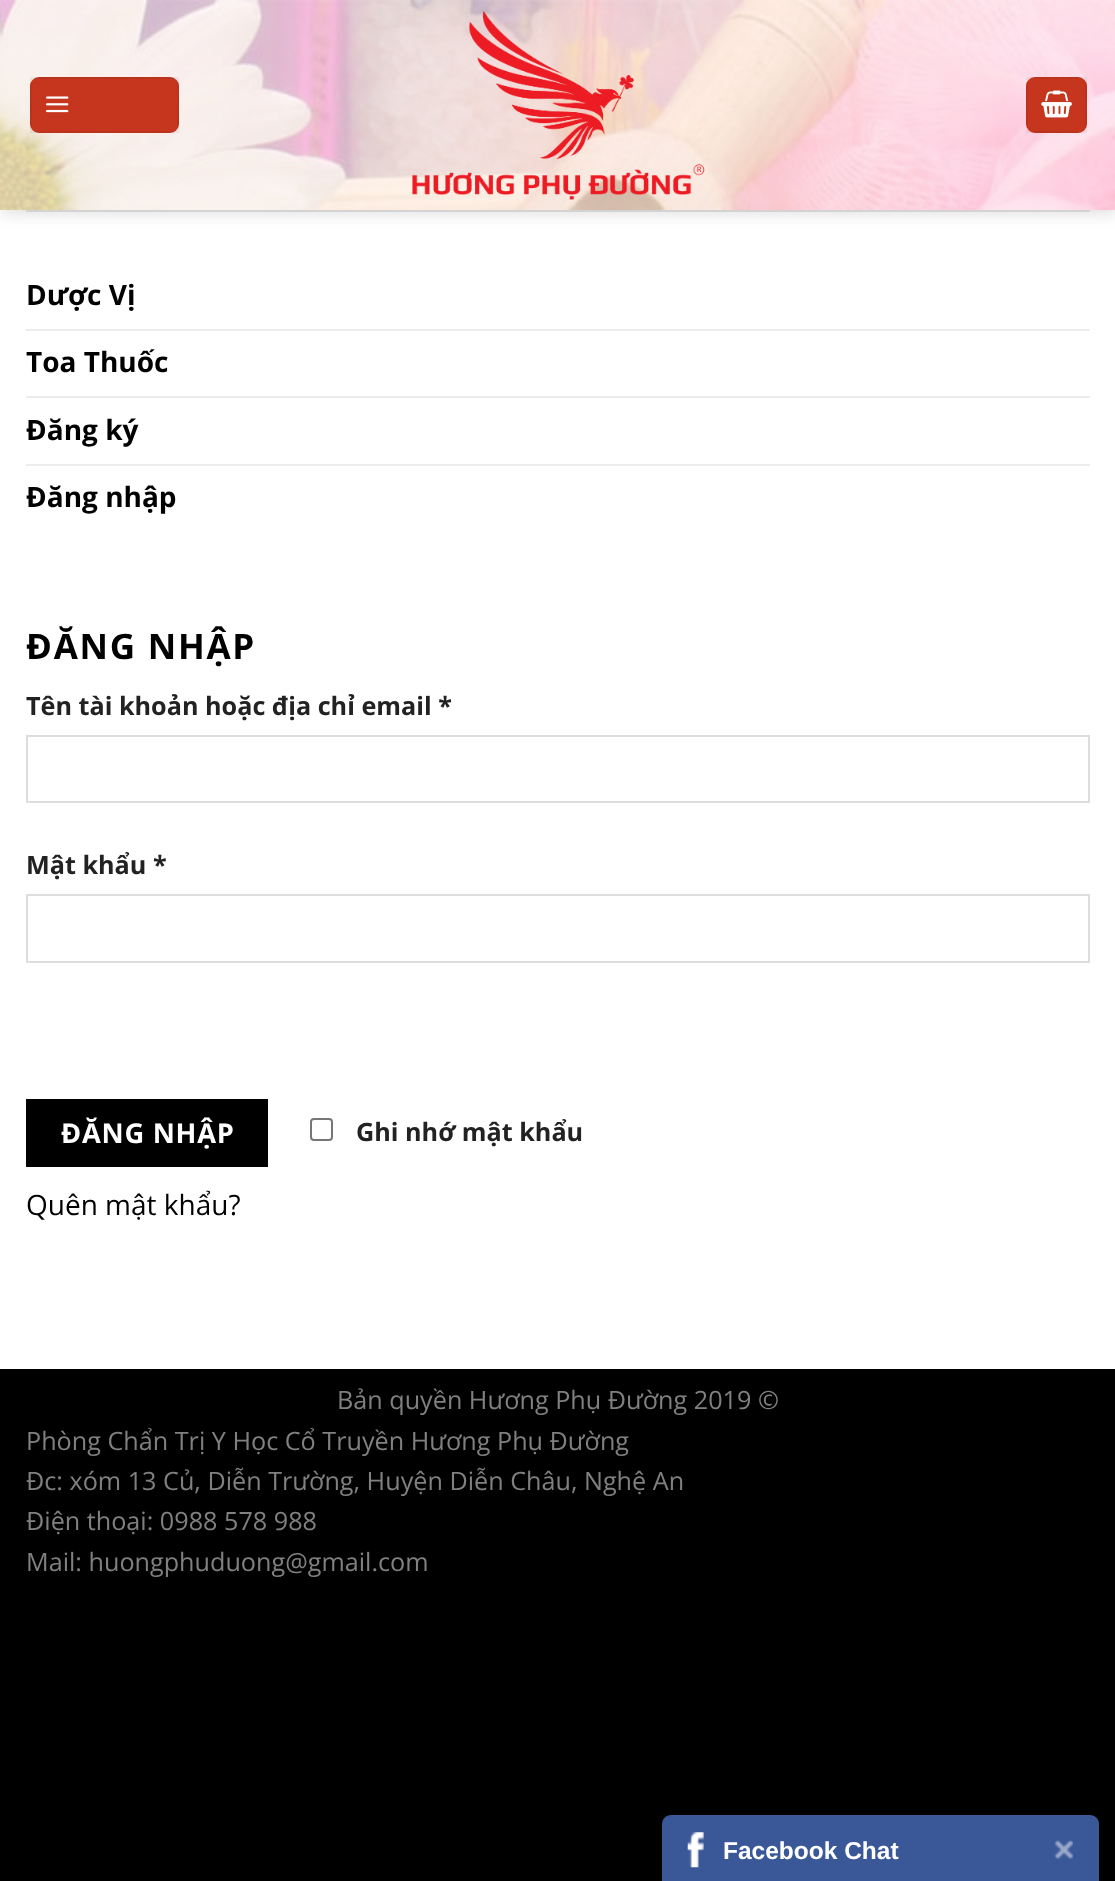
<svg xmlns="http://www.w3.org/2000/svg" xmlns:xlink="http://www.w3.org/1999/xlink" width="1115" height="1881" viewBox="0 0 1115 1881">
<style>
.cls-1{font:bold 28px Open Sans;fill:#000000}
.cls-2{font:bold 35px Open Sans;letter-spacing:1.75px;fill:#000000}
.cls-3{font:bold 25.2px Open Sans;fill:#222222}
.cls-4{font:bold 27.25px Open Sans;letter-spacing:0.75px;fill:#ffffff}
.cls-5{font:28px Open Sans;fill:#000000}
.cls-6{font:25.2px Open Sans;fill:#808080}
.cls-7{font:bold 24.5px Liberation Sans;fill:#ffffff}
</style>
<rect width="100%" height="100%" fill="#000000"/>
<rect fill="#ffffff" x="0" y="210" width="1115" height="1159"/>
<rect fill="#000000" fill-opacity="0.15" filter="blur(9px)" x="2" y="2" width="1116" height="210"/>
<image xlink:href="image0.png" x="0" y="0" width="1115" height="210"/>
<rect fill="#c6361f" x="30" y="77" width="149" height="56" rx="9"/>
<rect fill="none" stroke="#000000" stroke-opacity="0.05" stroke-width="2" x="31" y="78" width="147" height="54"/>
<image xlink:href="image1.png" x="46" y="96" width="23" height="17"/>
<image xlink:href="image2.png" x="412" y="10" width="293" height="190"/>
<rect fill="#c6361f" x="1026" y="77" width="61" height="56" rx="9"/>
<rect fill="none" stroke="#000000" stroke-opacity="0.05" stroke-width="2" x="1027" y="78" width="59" height="54"/>
<image xlink:href="image3.png" x="1041" y="90" width="31" height="28"/>
<rect fill="#d3d3d3" x="26" y="210" width="1064" height="2"/>
<rect fill="#ececec" x="26" y="329" width="1064" height="2"/>
<rect fill="#ececec" x="26" y="396" width="1064" height="2"/>
<rect fill="#ececec" x="26" y="464" width="1064" height="2"/>
<rect fill="none" stroke="#dddddd" stroke-width="2" x="27" y="736" width="1062" height="66"/>
<rect fill="none" stroke="#dddddd" stroke-width="2" x="27" y="895" width="1062" height="67"/>
<rect fill="#000000" x="26" y="1099" width="242" height="68"/>
<rect fill="none" stroke="#767676" stroke-width="2" x="311" y="1119" width="21" height="21" rx="3"/>
<path fill="#3a5897" d="M671 1815H1090C1095 1815 1099 1819 1099 1824V1881H662V1824C662 1819 666 1815 671 1815Z"/>
<image xlink:href="image4.png" x="687" y="1832" width="17" height="36"/>
<image xlink:href="image5.png" x="1054" y="1840" width="19" height="19"/>
<text class="cls-1" x="26" y="305">Dược Vị</text>
<text class="cls-1" x="26" y="372">Toa Thuốc</text>
<text class="cls-1" x="26" y="440">Đăng ký</text>
<text class="cls-1" x="26" y="507">Đăng nhập</text>
<text class="cls-2" x="26" y="659">ĐĂNG NHẬP</text>
<text class="cls-3" x="26" y="715">Tên tài khoản hoặc địa chỉ email *</text>
<text class="cls-3" x="26" y="874">Mật khẩu *</text>
<text class="cls-4" x="61" y="1143">ĐĂNG NHẬP</text>
<text class="cls-3" x="356" y="1141">Ghi nhớ mật khẩu</text>
<text class="cls-5" x="26" y="1215">Quên mật khẩu?</text>
<text class="cls-6" x="337" y="1409">Bản quyền Hương Phụ Đường 2019 ©</text>
<text class="cls-6"><tspan x="26" y="1450">Phòng Chẩn Trị Y Học Cổ Truyền Hương Phụ Đường</tspan><tspan x="26" y="1490">Đc: xóm 13 Củ, Diễn Trường, Huyện Diễn Châu, Nghệ An</tspan><tspan x="26" y="1530">Điện thoại: 0988 578 988</tspan><tspan x="26" y="1571">Mail: huongphuduong@gmail.com</tspan></text>
<text class="cls-7" x="723" y="1859">Facebook Chat</text>
</svg>
